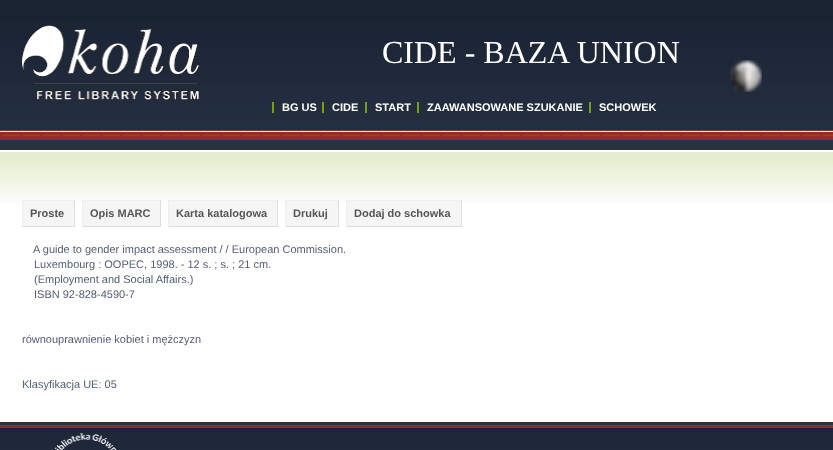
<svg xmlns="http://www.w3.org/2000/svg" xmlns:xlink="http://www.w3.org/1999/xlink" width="833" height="450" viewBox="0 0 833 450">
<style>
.cls-1{font:32px Liberation Serif;fill:#ffffff}
.cls-2{font:bold 11px Liberation Sans;fill:#ffffff}
.cls-3{font:bold 11px Liberation Sans;fill:#565656}
.cls-4{font:11px Liberation Sans;fill:#555d76}
</style>
<rect width="100%" height="100%" fill="#ffffff"/>
<image xlink:href="image0.png" x="0" y="0" width="833" height="204"/>
<image xlink:href="image1.png" x="22" y="25" width="177" height="75"/>
<image xlink:href="image2.png" x="730" y="60" width="32" height="32"/>
<rect fill="#7c9f11" x="272" y="102" width="2" height="11"/>
<rect fill="#7c9f11" x="322" y="102" width="2" height="11"/>
<rect fill="#7c9f11" x="365" y="102" width="2" height="11"/>
<rect fill="#7c9f11" x="417" y="102" width="2" height="11"/>
<rect fill="#7c9f11" x="589" y="102" width="2" height="11"/>
<rect fill="#f5f5f5" x="23" y="201" width="51" height="25"/>
<rect fill="#eeeeee" x="22" y="200" width="53" height="1"/>
<rect fill="#dedede" x="74" y="200" width="1" height="27"/>
<rect fill="#dedede" x="22" y="226" width="53" height="1"/>
<rect fill="#eeeeee" x="22" y="200" width="1" height="27"/>
<rect fill="#f5f5f5" x="83" y="201" width="77" height="25"/>
<rect fill="#eeeeee" x="82" y="200" width="79" height="1"/>
<rect fill="#dedede" x="160" y="200" width="1" height="27"/>
<rect fill="#dedede" x="82" y="226" width="79" height="1"/>
<rect fill="#eeeeee" x="82" y="200" width="1" height="27"/>
<rect fill="#f5f5f5" x="169" y="201" width="108" height="25"/>
<rect fill="#eeeeee" x="168" y="200" width="110" height="1"/>
<rect fill="#dedede" x="277" y="200" width="1" height="27"/>
<rect fill="#dedede" x="168" y="226" width="110" height="1"/>
<rect fill="#eeeeee" x="168" y="200" width="1" height="27"/>
<rect fill="#f5f5f5" x="286" y="201" width="52" height="25"/>
<rect fill="#eeeeee" x="285" y="200" width="54" height="1"/>
<rect fill="#dedede" x="338" y="200" width="1" height="27"/>
<rect fill="#dedede" x="285" y="226" width="54" height="1"/>
<rect fill="#eeeeee" x="285" y="200" width="1" height="27"/>
<rect fill="#f5f5f5" x="347" y="201" width="114" height="25"/>
<rect fill="#eeeeee" x="346" y="200" width="116" height="1"/>
<rect fill="#dedede" x="461" y="200" width="1" height="27"/>
<rect fill="#dedede" x="346" y="226" width="116" height="1"/>
<rect fill="#eeeeee" x="346" y="200" width="1" height="27"/>
<image xlink:href="image3.png" x="0" y="420" width="833" height="30"/>
<image xlink:href="image4.png" x="55" y="433" width="62" height="17"/>
<text class="cls-1" x="382" y="63">CIDE - BAZA UNION</text>
<text class="cls-2" x="282" y="111">BG US</text>
<text class="cls-2" x="332" y="111">CIDE</text>
<text class="cls-2" x="375" y="111">START</text>
<text class="cls-2" x="427" y="111">ZAAWANSOWANE SZUKANIE</text>
<text class="cls-2" x="599" y="111">SCHOWEK</text>
<text class="cls-3" x="30" y="217">Proste</text>
<text class="cls-3" x="90" y="217">Opis MARC</text>
<text class="cls-3" x="176" y="217">Karta katalogowa</text>
<text class="cls-3" x="293" y="217">Drukuj</text>
<text class="cls-3" x="354" y="217">Dodaj do schowka</text>
<text class="cls-4" x="33" y="253">A guide to gender impact assessment / / European Commission.</text>
<text class="cls-4"><tspan x="34" y="268">Luxembourg : OOPEC, 1998. - 12 s. ; s. ; 21 cm.</tspan><tspan x="34" y="283">(Employment and Social Affairs.)</tspan><tspan x="34" y="298">ISBN 92-828-4590-7</tspan></text>
<text class="cls-4" x="22" y="343">równouprawnienie kobiet i mężczyzn</text>
<text class="cls-4" x="22" y="388">Klasyfikacja UE: 05</text>
</svg>
